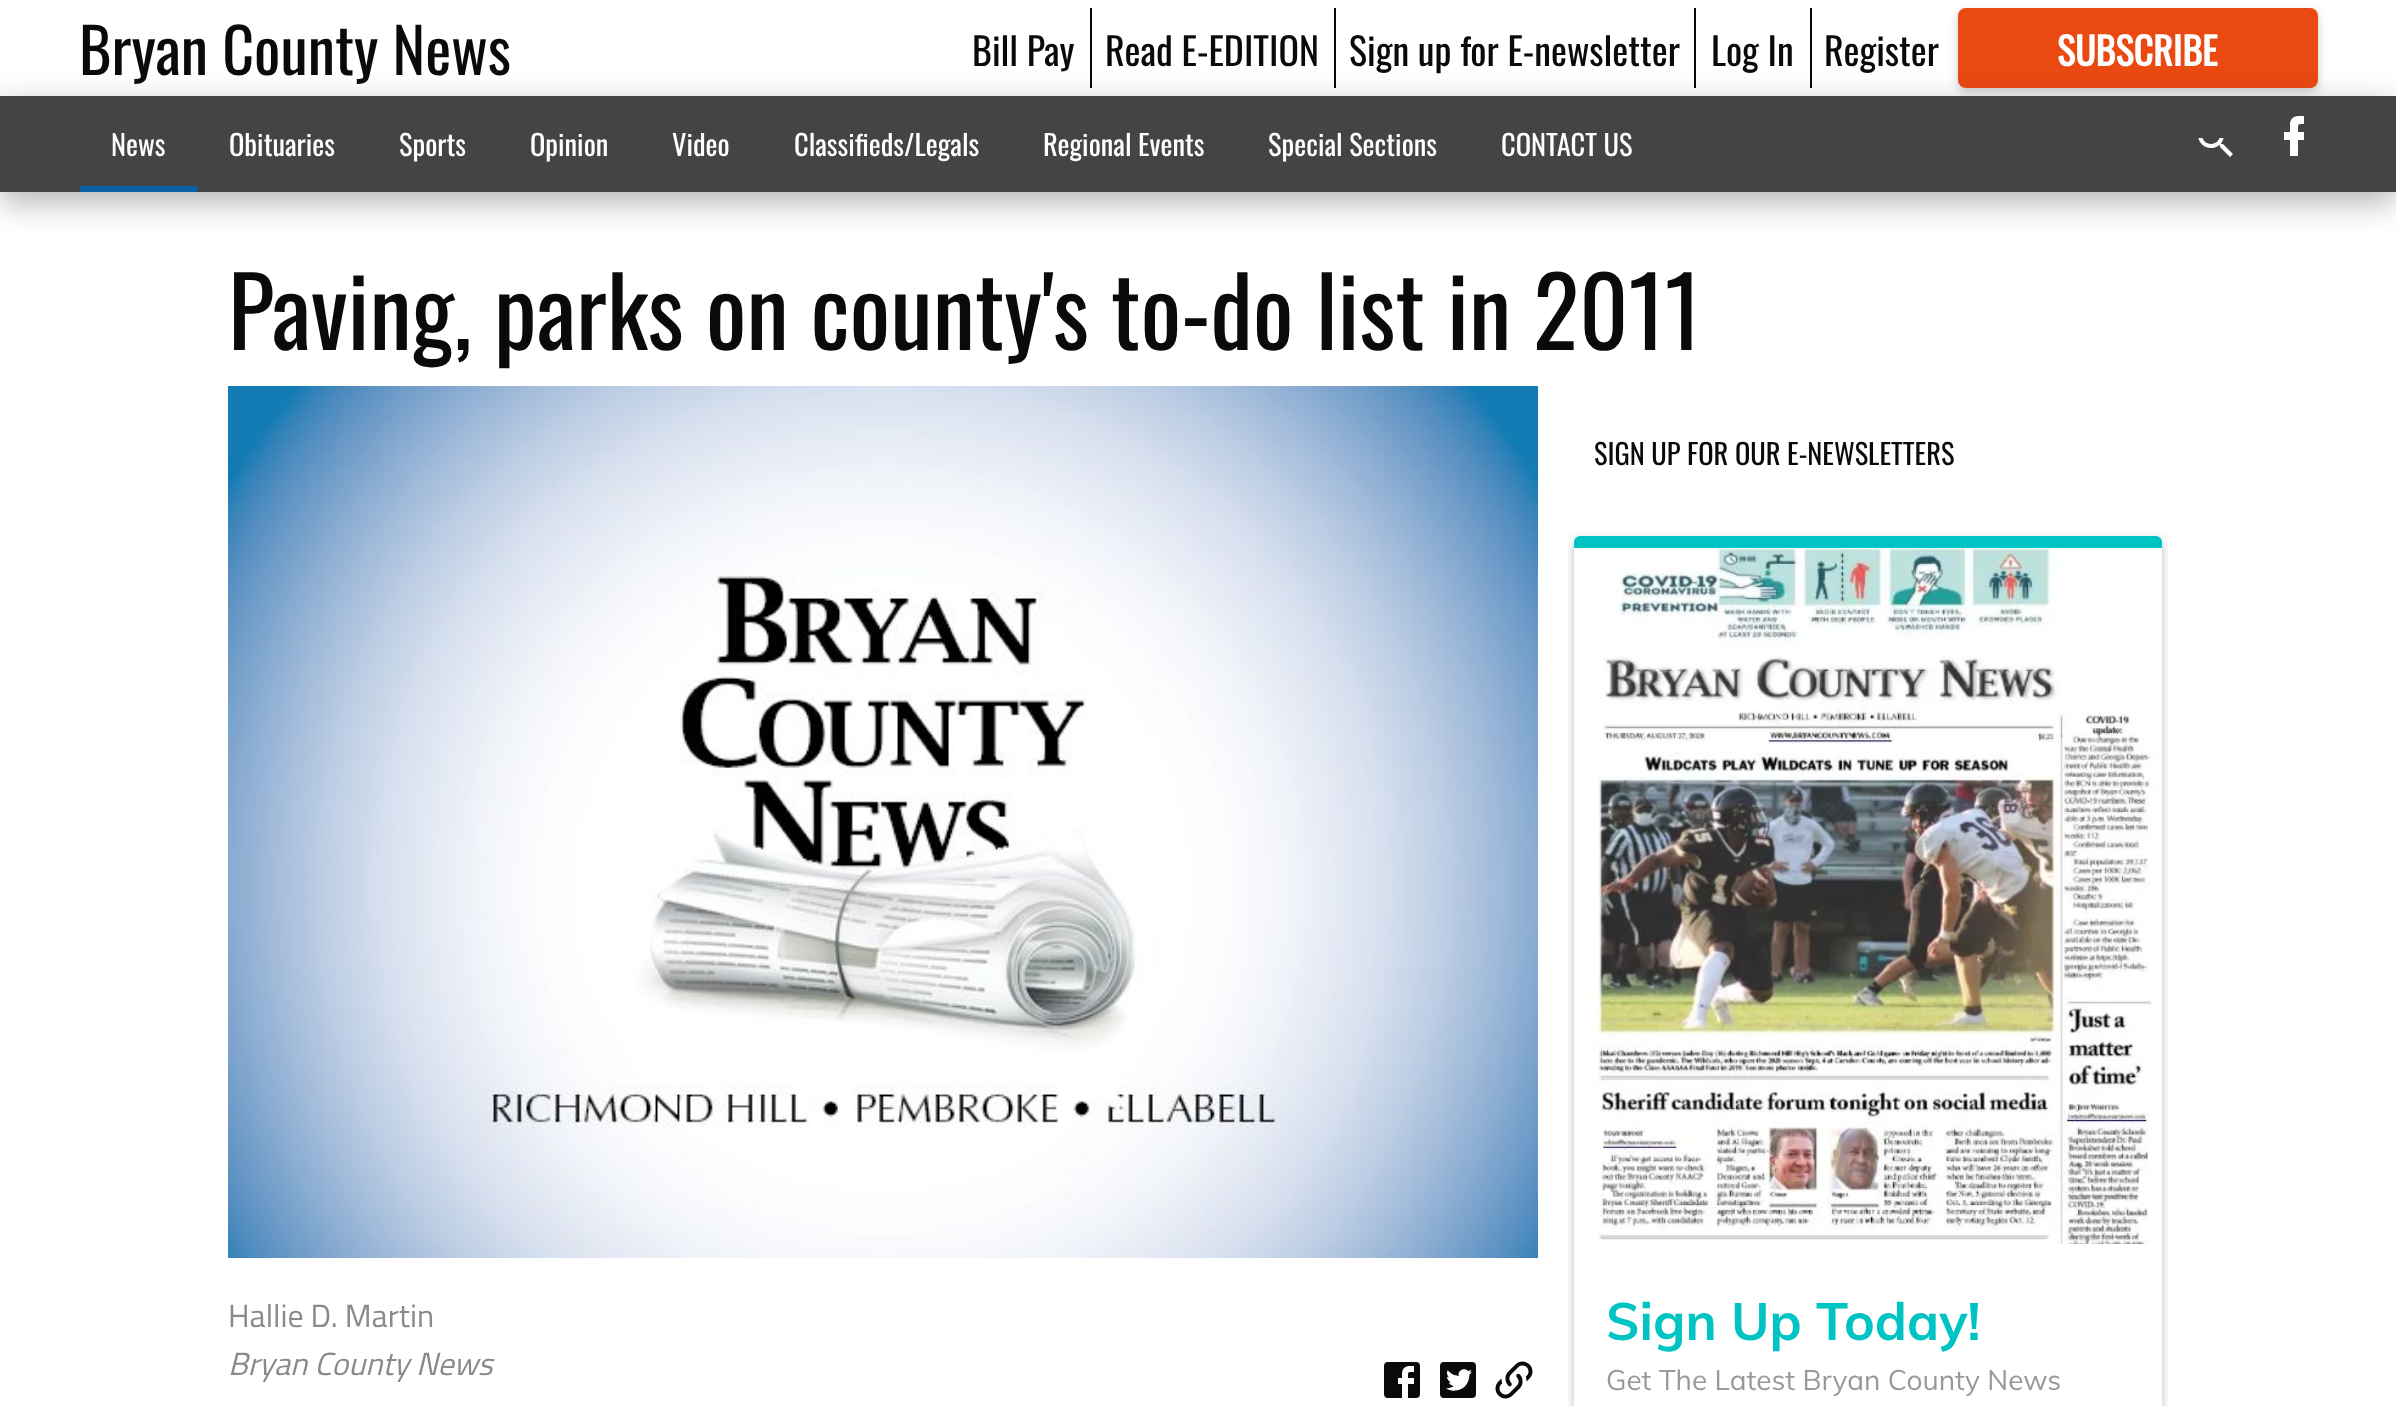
<svg xmlns="http://www.w3.org/2000/svg" xmlns:xlink="http://www.w3.org/1999/xlink" width="2396" height="1406" viewBox="0 0 2396 1406">
<style>
.cls-1{font:62px Oswald;fill:#0a0a0a}
.cls-2{font:38px Oswald;fill:#0a0a0a}
.cls-3{font:bold 38px Oswald;fill:#fefefe}
.cls-4{font:28.5px Oswald;fill:#fefefe}
.cls-5{font:96px Oswald;fill:#0a0a0a}
.cls-6{font:28.5px Oswald;fill:#0a0a0a}
.cls-7{font:32px Titillium Web;fill:#8a8a8a}
.cls-8{font:italic 32px Titillium Web;fill:#8a8a8a}
</style>
<rect width="100%" height="100%" fill="#ffffff"/>
<rect fill="#0a0a0a" x="1090" y="8" width="2" height="80"/>
<rect fill="#0a0a0a" x="1694" y="8" width="2" height="80"/>
<rect fill="#0a0a0a" x="1334" y="8" width="2" height="80"/>
<rect fill="#0a0a0a" x="1810" y="8" width="2" height="80"/>
<rect fill="#000000" fill-opacity="0.2" filter="blur(5px)" x="1958" y="12" width="360" height="80" rx="8"/>
<rect fill="#ea4912" x="1958" y="8" width="360" height="80" rx="8"/>
<rect fill="#000000" fill-opacity="0.3" filter="blur(16px)" x="0" y="106" width="2396" height="96"/>
<rect fill="#444444" x="0" y="96" width="2396" height="96"/>
<rect fill="#0b61a4" x="80" y="186" width="118" height="6"/>
<image xlink:href="image0.png" x="2198" y="138" width="35" height="19"/>
<image xlink:href="image1.png" x="2284" y="116" width="20" height="40"/>
<image xlink:href="image2.png" x="1568" y="531" width="600" height="875"/>
<image xlink:href="image3.png" x="228" y="386" width="1310" height="872"/>
<image xlink:href="image4.png" x="1384" y="1362" width="36" height="36"/>
<image xlink:href="image5.png" x="1440" y="1362" width="36" height="36"/>
<image xlink:href="image6.png" x="1495" y="1361" width="38" height="38"/>
<text class="cls-1" x="79" y="75">Bryan County News</text>
<text class="cls-2" x="972" y="66">Bill Pay</text>
<text class="cls-2" x="1105" y="66">Read E-EDITION</text>
<text class="cls-2" x="1349" y="66">Sign up for E-newsletter</text>
<text class="cls-2" x="1711" y="66">Log In</text>
<text class="cls-2" x="1824" y="66">Register</text>
<text class="cls-3" x="2057" y="66">SUBSCRIBE</text>
<text class="cls-4" x="111" y="156">News</text>
<text class="cls-4" x="229" y="156">Obituaries</text>
<text class="cls-4" x="399" y="156">Sports</text>
<text class="cls-4" x="530" y="156">Opinion</text>
<text class="cls-4" x="672" y="156">Video</text>
<text class="cls-4" x="794" y="156">Classifieds/Legals</text>
<text class="cls-4" x="1043" y="156">Regional Events</text>
<text class="cls-4" x="1268" y="156">Special Sections</text>
<text class="cls-4" x="1501" y="156">CONTACT US</text>
<text class="cls-5" x="228" y="350">Paving, parks on county's to-do list in 2011</text>
<text class="cls-6" x="1594" y="465">SIGN UP FOR OUR E-NEWSLETTERS</text>
<text class="cls-7" x="228" y="1327">Hallie D. Martin</text>
<text class="cls-8" x="228" y="1375">Bryan County News</text>
</svg>
